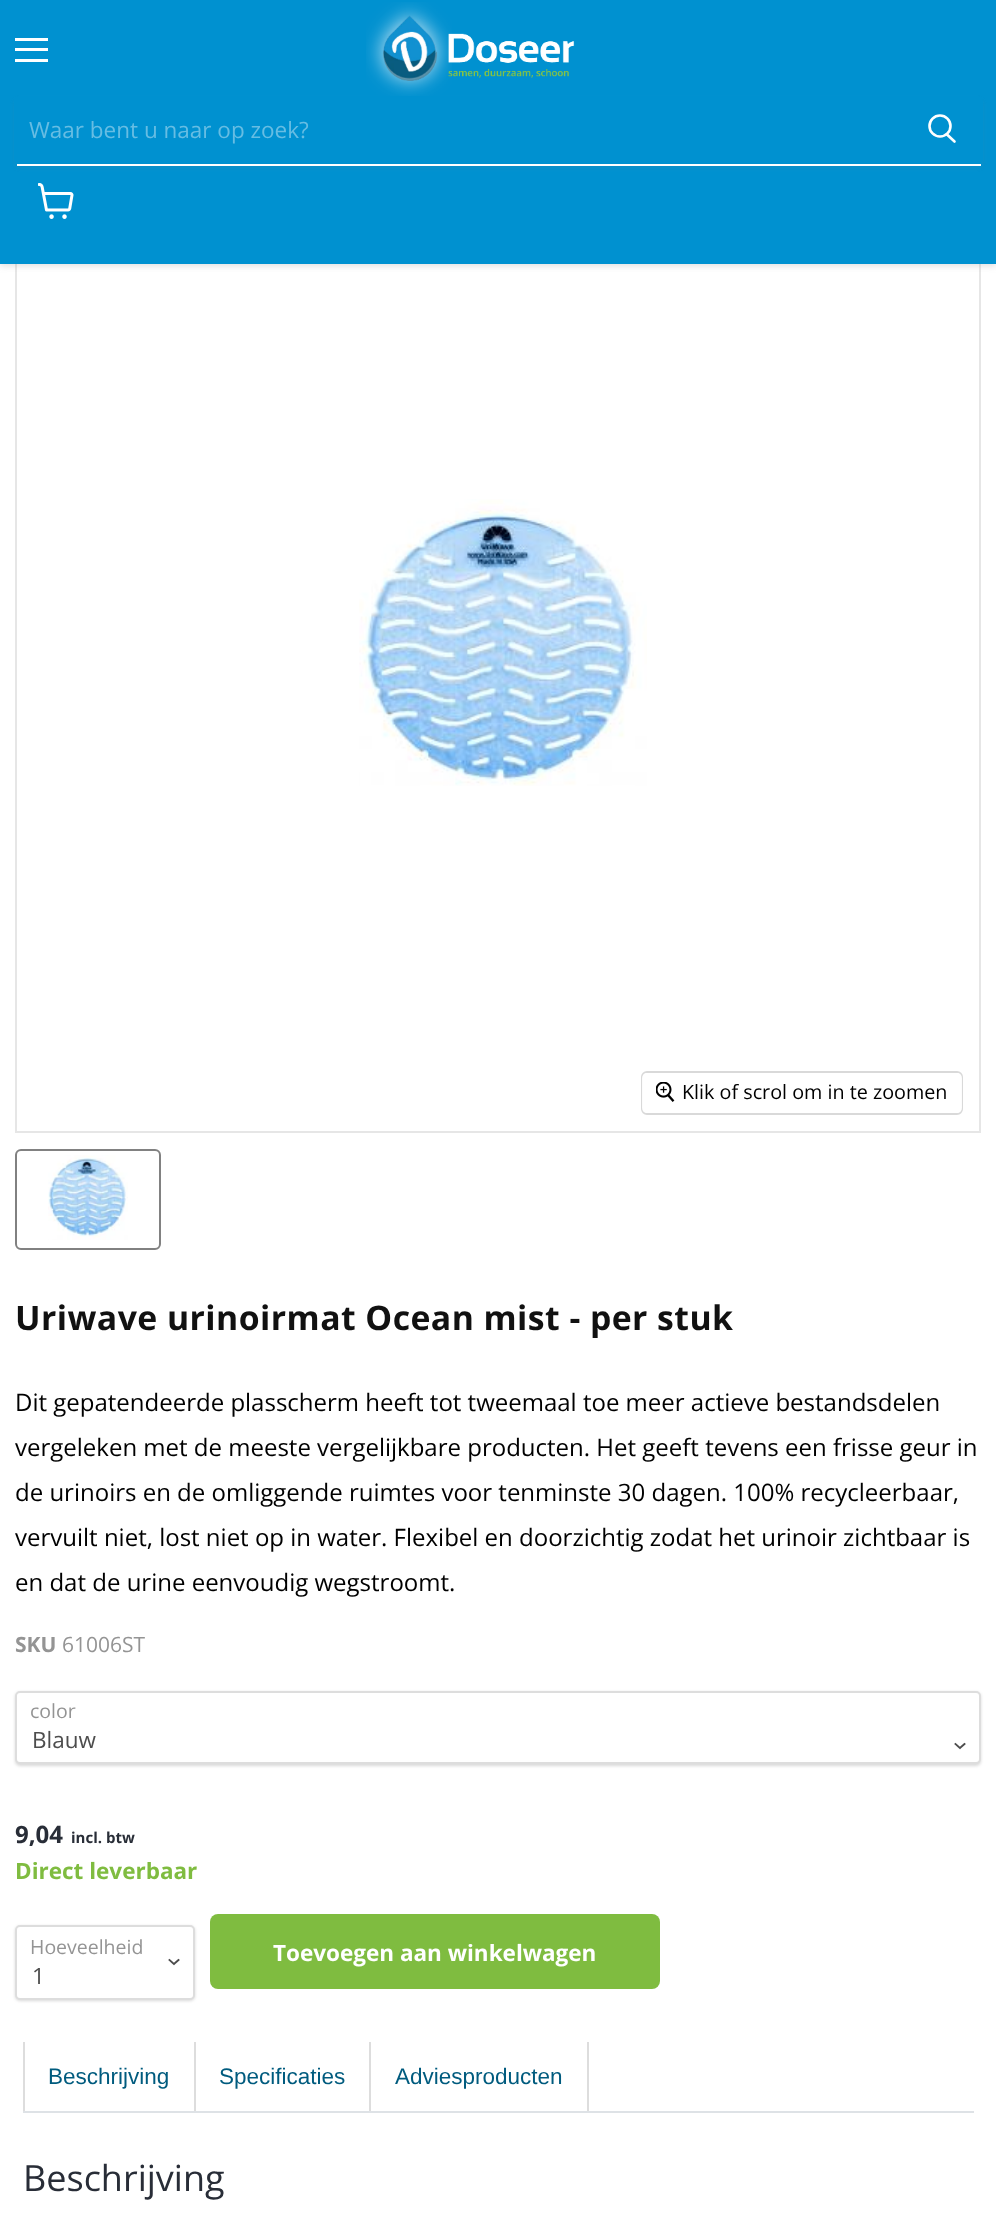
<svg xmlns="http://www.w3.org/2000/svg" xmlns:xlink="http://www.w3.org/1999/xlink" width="996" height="2220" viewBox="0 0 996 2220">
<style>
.cls-1{font:22.5px Open Sans;fill:#66bde3}
.cls-2{font:19.75px Open Sans;fill:#000000}
.cls-3{font:bold 33.75px Open Sans;letter-spacing:0.45px;fill:#111111}
.cls-4{font:24px Open Sans;fill:#000000}
.cls-5{font:bold 21px Open Sans;fill:#949494}
.cls-6{font:21px Open Sans;fill:#949494}
.cls-7{font:19.5px Open Sans;fill:#949494}
.cls-8{font:22.5px Open Sans;fill:#4d4d4d}
.cls-9{font:bold 24px Open Sans;fill:#282d37}
.cls-10{font:bold 15px Open Sans;fill:#282d37}
.cls-11{font:bold 22.5px Open Sans;fill:#7fbc40}
.cls-12{font:bold 22.5px Open Sans;fill:#ffffff}
.cls-13{font:22.5px Liberation Sans;fill:#005b7e}
.cls-14{font:36px Open Sans;fill:#282d37}
</style>
<defs>
<clipPath id="clip1"><path d="M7 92H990V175H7ZM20 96H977C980.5 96 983 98.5 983 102V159C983 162.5 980.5 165 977 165H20C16.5 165 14 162.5 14 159V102C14 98.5 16.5 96 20 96Z" clip-rule="evenodd"/></clipPath>
</defs>
<rect width="100%" height="100%" fill="#ffffff"/>
<rect fill="none" stroke="#e6e6e6" stroke-width="2" x="16" y="171" width="964" height="961"/>
<rect fill="#808080" fill-opacity="0.25" filter="blur(3px)" x="0" y="2" width="996" height="264"/>
<rect fill="#0091d0" x="0" y="0" width="996" height="264"/>
<rect fill="#ffffff" x="15" y="38" width="33" height="3"/>
<rect fill="#ffffff" x="15" y="48" width="33" height="3"/>
<rect fill="#ffffff" x="15" y="59" width="33" height="3"/>
<image xlink:href="image1.png" x="383" y="17" width="192" height="64"/>
<image xlink:href="image0.png" x="366" y="2" width="86" height="94"/>
<g clip-path="url(#clip1)">
<rect fill="#808080" fill-opacity="0.11" filter="blur(2px)" x="14" y="99" width="969" height="69" rx="6"/>
</g>
<rect fill="#ffffff" x="17" y="164" width="964" height="2"/>
<path fill="none" stroke="#ffffff" stroke-width="2.6" stroke-linecap="round" d="M954.5 141.5L947 134.5"/>
<circle fill="none" stroke="#ffffff" stroke-width="2.6" cx="940" cy="126" r="10.5"/>
<image xlink:href="image2.png" x="38" y="183" width="36" height="36"/>
<image xlink:href="image3.png" x="359" y="499" width="288" height="287"/>
<rect fill="none" stroke="#d9d9d9" stroke-width="2" x="642" y="1072" width="320" height="42" rx="5"/>
<rect fill="#ffffff" fill-opacity="0.9" x="642" y="1073" width="320" height="40" rx="5"/>
<image xlink:href="image4.png" x="656" y="1082" width="19" height="20"/>
<rect fill="none" stroke="#818181" stroke-width="2" x="16" y="1150" width="144" height="99" rx="5"/>
<image xlink:href="image5.png" x="48" y="1155" width="80" height="85"/>
<rect fill="#000000" fill-opacity="0.15" filter="blur(1.5px)" x="15" y="1692" width="966" height="74" rx="5"/>
<rect fill="#ffffff" stroke="#dddddd" stroke-width="2" x="16" y="1692" width="964" height="71" rx="4"/>
<path fill="none" stroke="#4d4d4d" stroke-width="1.9" stroke-linecap="square" d="M960 1748L964.5 1744M960 1748L955.5 1744"/>
<rect fill="#000000" fill-opacity="0.15" filter="blur(1.5px)" x="15" y="1926" width="180" height="75" rx="5"/>
<rect fill="#ffffff" stroke="#dddddd" stroke-width="2" x="16" y="1926" width="178" height="73" rx="4"/>
<path fill="none" stroke="#4d4d4d" stroke-width="1.9" stroke-linecap="square" d="M174 1964L178.5 1960M174 1964L169.5 1960"/>
<rect fill="#7fbc40" x="210" y="1914" width="450" height="75" rx="8"/>
<rect fill="#dee2e6" x="23" y="2111" width="951" height="2"/>
<rect fill="#dddddd" x="194" y="2042" width="2" height="69"/>
<rect fill="#dddddd" x="23" y="2042" width="2" height="69"/>
<rect fill="#dddddd" x="369" y="2042" width="2" height="69"/>
<rect fill="#dddddd" x="587" y="2042" width="2" height="69"/>
<text class="cls-1" x="29" y="138">Waar bent u naar op zoek?</text>
<text class="cls-2" x="682" y="1099">Klik of scrol om in te zoomen</text>
<text class="cls-3" x="15" y="1330">Uriwave urinoirmat Ocean mist - per stuk</text>
<text class="cls-4"><tspan x="15" y="1411">Dit gepatendeerde plasscherm heeft tot tweemaal toe meer actieve bestandsdelen</tspan><tspan x="15" y="1456">vergeleken met de meeste vergelijkbare producten. Het geeft tevens een frisse geur in</tspan><tspan x="15" y="1501">de urinoirs en de omliggende ruimtes voor tenminste 30 dagen. 100% recycleerbaar,</tspan><tspan x="15" y="1546">vervuilt niet, lost niet op in water. Flexibel en doorzichtig zodat het urinoir zichtbaar is</tspan><tspan x="15" y="1591">en dat de urine eenvoudig wegstroomt.</tspan></text>
<text class="cls-5" x="15" y="1652">SKU</text>
<text class="cls-6" x="62" y="1652">61006ST</text>
<text class="cls-7" x="30" y="1718">color</text>
<text class="cls-8" x="32" y="1748">Blauw</text>
<text class="cls-9" x="15" y="1843">9,04</text>
<text class="cls-10" x="71" y="1843">incl. btw</text>
<text class="cls-11" x="15" y="1879">Direct leverbaar</text>
<text class="cls-7" x="30" y="1954">Hoeveelheid</text>
<text class="cls-8" x="32" y="1984">1</text>
<text class="cls-12" x="273" y="1961">Toevoegen aan winkelwagen</text>
<text class="cls-13" x="48" y="2084">Beschrijving</text>
<text class="cls-13" x="219" y="2084">Specificaties</text>
<text class="cls-13" x="395" y="2084">Adviesproducten</text>
<text class="cls-14" x="23" y="2191">Beschrijving</text>
</svg>
